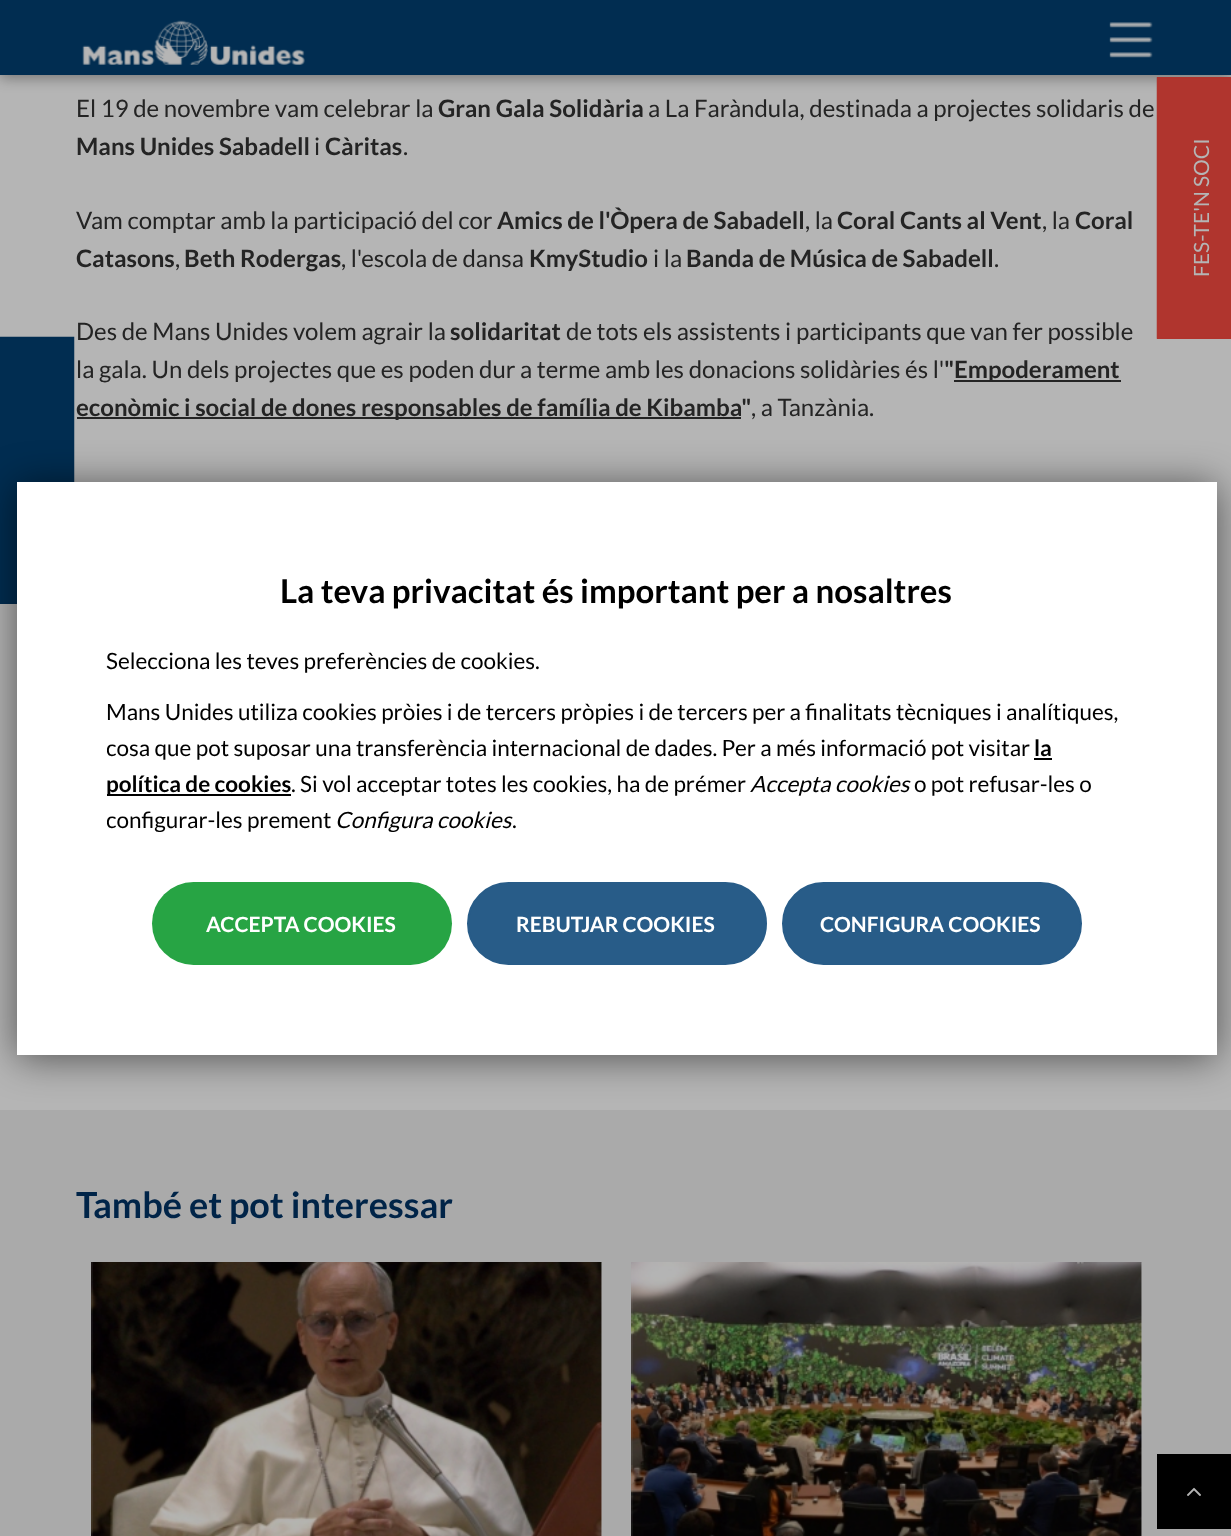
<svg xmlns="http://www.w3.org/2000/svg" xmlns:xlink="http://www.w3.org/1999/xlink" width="1231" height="1536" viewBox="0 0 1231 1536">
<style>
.cls-1{font:24px Lato;fill:#242424}
.cls-2{font:bold 24px Lato;fill:#242424}
.cls-3{font:bold 36px Lato;fill:#002448}
.cls-4{font:21px Lato;fill:#b5b5b5}
.cls-5{font:bold 33px Lato;fill:#000000}
.cls-6{font:22.5px Lato;fill:#000000}
.cls-7{font:bold 22.5px Lato;fill:#000000}
.cls-8{font:italic 22.5px Lato;fill:#000000}
.cls-9{font:bold 21px Lato;fill:#ffffff}
</style>
<defs>
<clipPath id="clip1"><rect x="107" y="572" width="1020" height="393"/></clipPath>
</defs>
<rect width="100%" height="100%" fill="#b5b5b5"/>
<rect fill="#242424" x="954" y="380" width="167" height="2"/>
<rect fill="#242424" x="77" y="417" width="664" height="2"/>
<rect fill="#aaaaaa" x="0" y="1110" width="1231" height="426"/>
<rect fill="#b5b5b5" x="92" y="1263" width="510" height="273"/>
<image xlink:href="image0.png" x="91" y="1262" width="511" height="274"/>
<rect fill="#b5b5b5" x="632" y="1263" width="510" height="273"/>
<image xlink:href="image1.png" x="631" y="1262" width="511" height="274"/>
<rect fill="#000000" x="1157" y="1454" width="74" height="75"/>
<image xlink:href="image2.png" x="1187" y="1487" width="14" height="9"/>
<rect fill="#000000" fill-opacity="0.35" filter="blur(7px)" x="0" y="3" width="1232" height="75"/>
<rect fill="#012d51" x="0" y="0" width="1231" height="75"/>
<image xlink:href="image3.png" x="82" y="20" width="223" height="45"/>
<image xlink:href="image4.png" x="1109" y="22" width="44" height="36"/>
<rect fill="#b0352e" x="1157" y="77" width="74" height="262"/>
<path fill="none" stroke="#b0352e" stroke-width="1.5" d="M1157.5 338V78H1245V338Z"/>
<rect fill="#012d51" x="0" y="338" width="73" height="266"/>
<path fill="none" stroke="#012d51" stroke-width="1.5" d="M-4.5 603V337.5H73.5V603Z"/>
<rect fill="#000000" fill-opacity="0.55" filter="blur(19.5px)" x="17" y="485" width="1200" height="573"/>
<rect fill="#ffffff" x="17" y="482" width="1200" height="573"/>
<rect fill="#000000" x="1034" y="758" width="18" height="2"/>
<rect fill="#000000" x="107" y="794" width="184" height="2"/>
<rect fill="#27a444" x="152" y="882" width="300" height="83" rx="41.5"/>
<rect fill="#285c88" stroke="#285c88" stroke-width="2" x="468" y="883" width="298" height="81" rx="40.5"/>
<rect fill="#285c88" stroke="#285c88" stroke-width="2" x="783" y="883" width="298" height="81" rx="40.5"/>
<text class="cls-1" x="76" y="117">El 19 de novembre vam celebrar la</text>
<text class="cls-2" x="438" y="117">Gran Gala Solidària</text>
<text class="cls-1" x="648" y="117">a La Faràndula, destinada a projectes solidaris de</text>
<text class="cls-2" x="76" y="155">Mans Unides Sabadell</text>
<text class="cls-1" x="314" y="155">i</text>
<text class="cls-2" x="325" y="155">Càritas</text>
<text class="cls-1" x="403" y="155">.</text>
<text class="cls-1" x="76" y="229">Vam comptar amb la participació del cor</text>
<text class="cls-2" x="497" y="229">Amics de l'Òpera de Sabadell</text>
<text class="cls-1" x="805" y="229">, la</text>
<text class="cls-2" x="837" y="229">Coral Cants al Vent</text>
<text class="cls-1" x="1042" y="229">, la</text>
<text class="cls-2" x="1075" y="229">Coral</text>
<text class="cls-2" x="76" y="267">Catasons</text>
<text class="cls-1" x="175" y="267">,</text>
<text class="cls-2" x="184" y="267">Beth Rodergas</text>
<text class="cls-1" x="341" y="267">, l'escola de dansa</text>
<text class="cls-2" x="529" y="267">KmyStudio</text>
<text class="cls-1" x="653" y="267">i la</text>
<text class="cls-2" x="686" y="267">Banda de Música de Sabadell</text>
<text class="cls-1" x="994" y="267">.</text>
<text class="cls-1" x="76" y="340">Des de Mans Unides volem agrair la</text>
<text class="cls-2" x="450" y="340">solidaritat</text>
<text class="cls-1" x="566" y="340">de tots els assistents i participants que van fer possible</text>
<text class="cls-1" x="76" y="378">la gala. Un dels projectes que es poden dur a terme amb les donacions solidàries és l'</text>
<text class="cls-2" x="944" y="378">"</text>
<text class="cls-2" x="954" y="378">Empoderament</text>
<text class="cls-2" x="76" y="416">econòmic i social de dones responsables de família de Kibamba"</text>
<text class="cls-1" x="751" y="416">, a Tanzània.</text>
<text class="cls-3" x="76" y="1218">També et pot interessar</text>
<text class="cls-4" x="1209" y="277" transform="rotate(-90 1209 277)">FES-TE'N SOCI</text>
<text class="cls-5" x="280" y="603">La teva privacitat és important per a nosaltres</text>
<text class="cls-6" x="106" y="669">Selecciona les teves preferències de cookies.</text>
<text class="cls-6" x="106" y="720">Mans Unides utiliza cookies pròies i de tercers pròpies i de tercers per a finalitats tècniques i analítiques,</text>
<g clip-path="url(#clip1)">
<text class="cls-6" x="106" y="756">cosa que pot suposar una transferència internacional de dades. Per a més informació pot visitar</text>
</g>
<text class="cls-7" x="1034" y="756">la</text>
<text class="cls-7" x="106" y="792">política de cookies</text>
<text class="cls-6" x="291" y="792">. Si vol acceptar totes les cookies, ha de prémer</text>
<text class="cls-8" x="750" y="792">Accepta cookies</text>
<text class="cls-6" x="914" y="792">o pot refusar-les o</text>
<g clip-path="url(#clip1)">
<text class="cls-6" x="106" y="828">configurar-les prement</text>
</g>
<text class="cls-8" x="335" y="828">Configura cookies</text>
<text class="cls-6" x="512" y="828">.</text>
<text class="cls-9" x="206" y="932">ACCEPTA COOKIES</text>
<text class="cls-9" x="516" y="932">REBUTJAR COOKIES</text>
<text class="cls-9" x="820" y="932">CONFIGURA COOKIES</text>
</svg>
